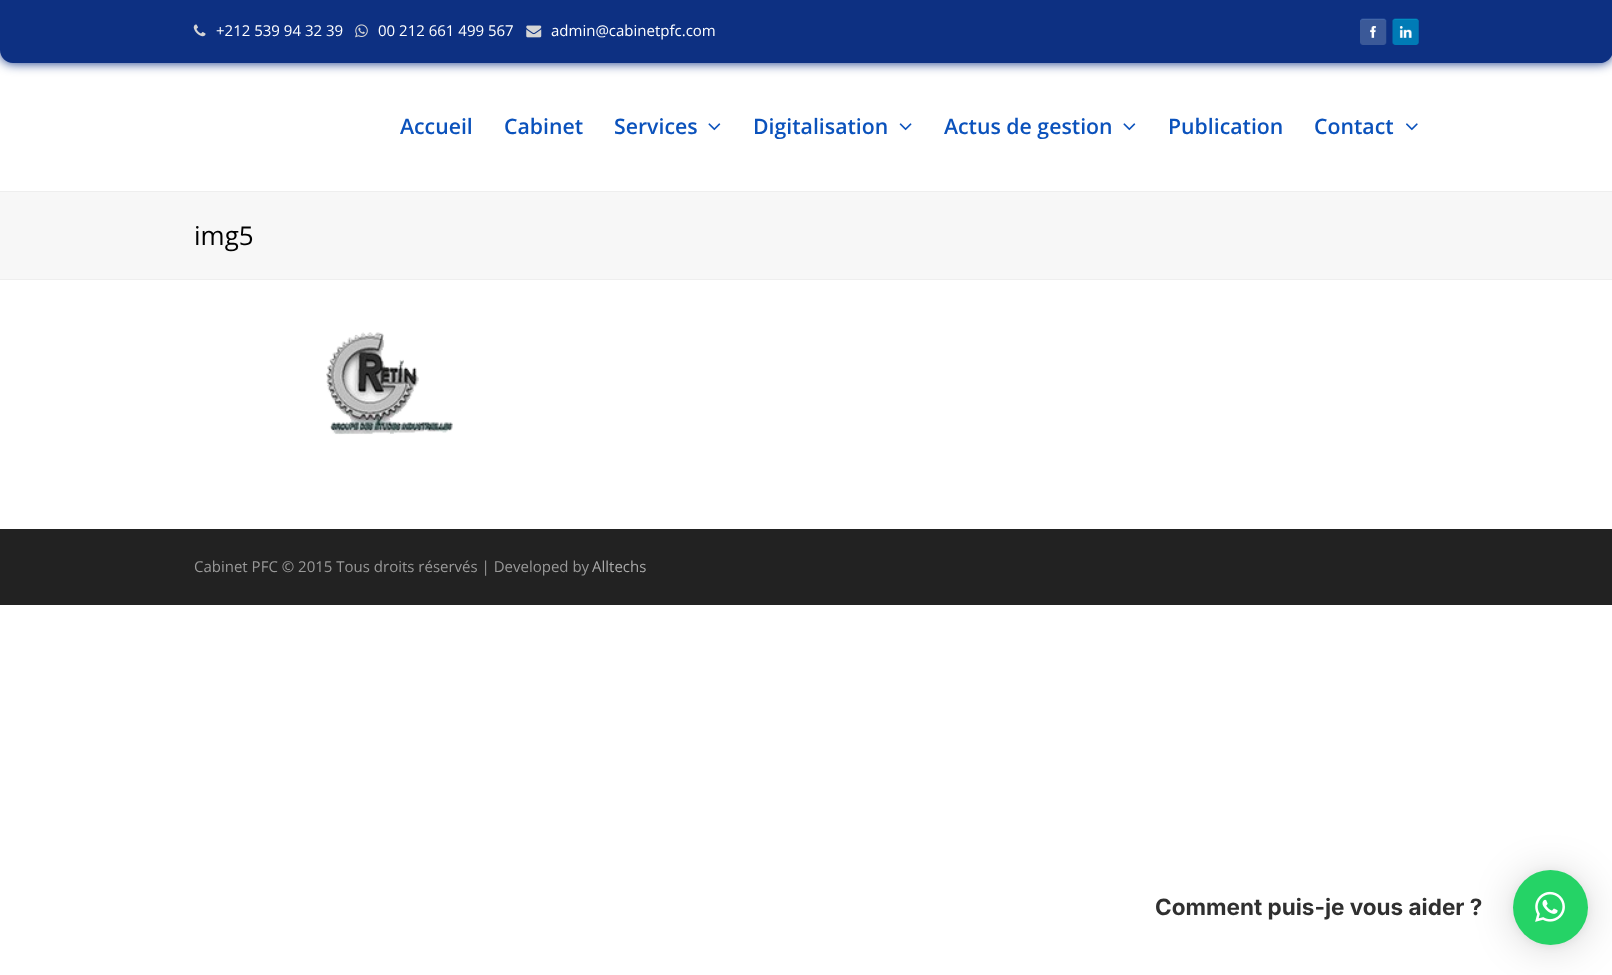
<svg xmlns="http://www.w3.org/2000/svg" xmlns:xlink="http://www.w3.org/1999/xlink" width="1612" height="975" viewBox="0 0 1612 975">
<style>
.cls-1{font:15px Open Sans;fill:#ffffff}
.cls-2{font:600 21.25px Open Sans;fill:#0b52bc}
.cls-3{font:26px Open Sans;fill:#000000}
.cls-4{font:15px Open Sans;fill:#999999}
.cls-5{font:15px Open Sans;fill:#aaaaaa}
.cls-6{font:bold 22.5px Inter;fill:#303030}
</style>
<rect width="100%" height="100%" fill="#ffffff"/>
<rect fill="#0d3082" filter="blur(6px)" x="0" y="0" width="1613" height="63" rx="13"/>
<path fill="#0d3082" d="M0 0H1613V50C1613 57 1607 63 1600 63H13C6 63 0 57 0 50Z"/>
<image xlink:href="image0.png" x="193" y="24" width="13" height="13"/>
<image xlink:href="image1.png" x="355" y="24" width="13" height="14"/>
<image xlink:href="image2.png" x="526" y="25" width="16" height="13"/>
<image xlink:href="image3.png" x="1360" y="18" width="27" height="27"/>
<image xlink:href="image4.png" x="1392" y="18" width="27" height="27"/>
<image xlink:href="image5.png" x="708" y="123" width="13" height="8"/>
<image xlink:href="image6.png" x="899" y="123" width="13" height="8"/>
<image xlink:href="image5.png" x="1123" y="123" width="13" height="8"/>
<image xlink:href="image7.png" x="1406" y="123" width="12" height="8"/>
<rect fill="#f7f7f7" x="0" y="192" width="1612" height="87"/>
<rect fill="#eeeeee" x="0" y="191" width="1612" height="1"/>
<rect fill="#eeeeee" x="0" y="279" width="1612" height="1"/>
<image xlink:href="image8.png" x="326" y="332" width="127" height="103"/>
<rect fill="#222222" x="0" y="529" width="1612" height="76"/>
<rect fill="#000000" fill-opacity="0.16" filter="blur(20px)" x="1513" y="873" width="75" height="75" rx="37.5"/>
<rect fill="#000000" fill-opacity="0.06" filter="blur(4px)" x="1513" y="871" width="75" height="75" rx="37.5"/>
<circle fill="#25d366" cx="1550.5" cy="907.5" r="37.5"/>
<image xlink:href="image9.png" x="1535" y="891" width="30" height="31"/>
<text class="cls-1" x="216" y="36">+212 539 94 32 39</text>
<text class="cls-1" x="378" y="36">00 212 661 499 567</text>
<text class="cls-1" x="551" y="36">admin@cabinetpfc.com</text>
<text class="cls-2" x="400" y="134">Accueil</text>
<text class="cls-2" x="504" y="134">Cabinet</text>
<text class="cls-2" x="614" y="134">Services</text>
<text class="cls-2" x="753" y="134">Digitalisation</text>
<text class="cls-2" x="944" y="134">Actus de gestion</text>
<text class="cls-2" x="1168" y="134">Publication</text>
<text class="cls-2" x="1314" y="134">Contact</text>
<text class="cls-3" x="194" y="245">img5</text>
<text class="cls-4" x="194" y="572">Cabinet PFC © 2015 Tous droits réservés | Developed by</text>
<text class="cls-5" x="592" y="572">Alltechs</text>
<text class="cls-6" x="1155" y="915">Comment puis-je vous aider ?</text>
</svg>
